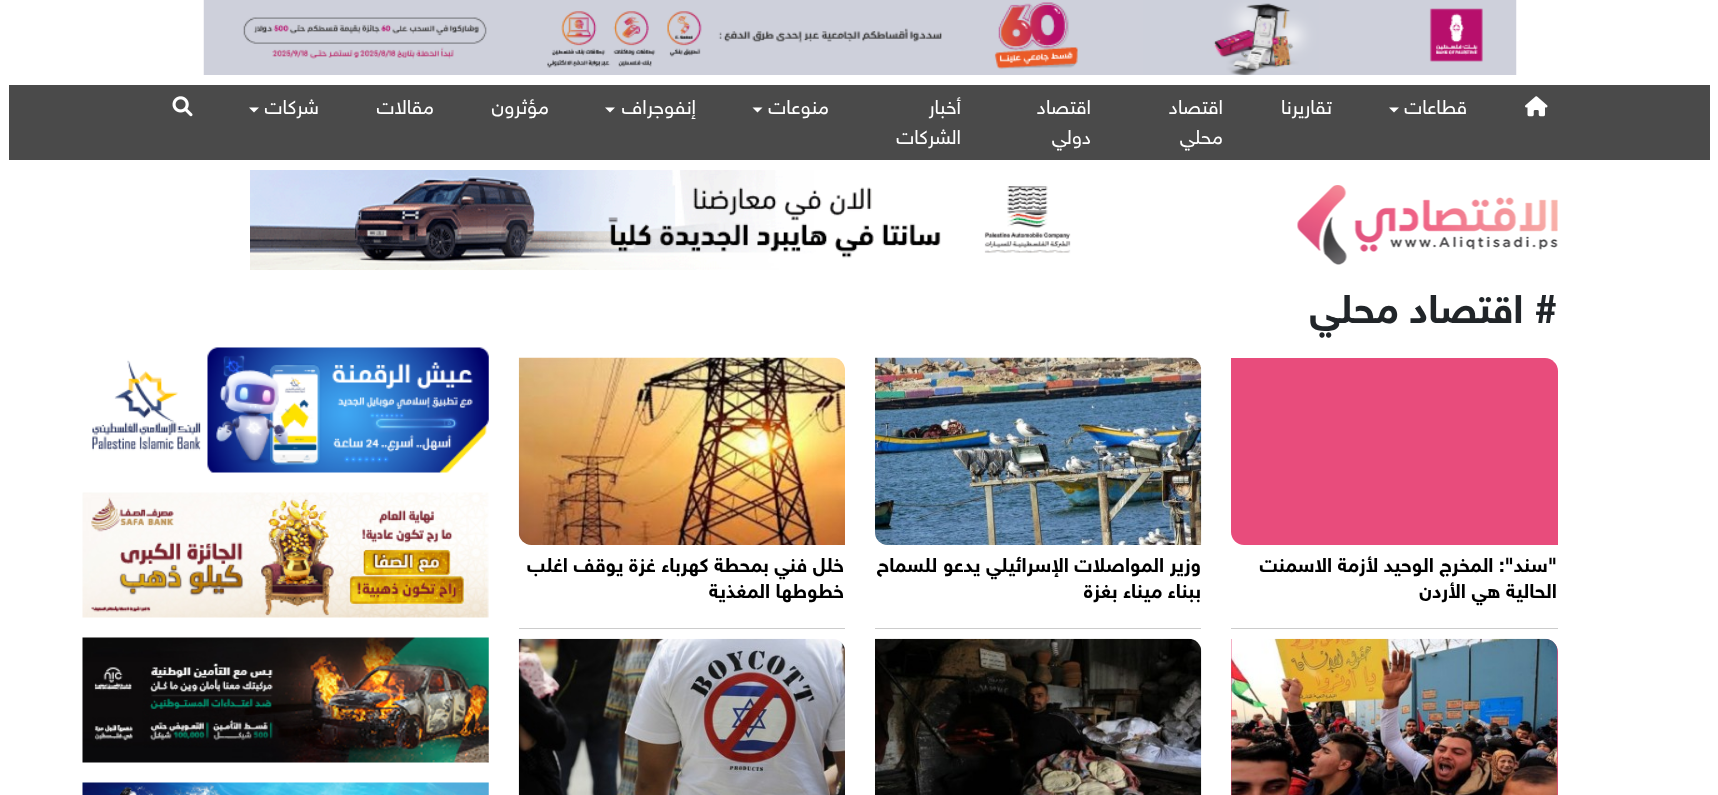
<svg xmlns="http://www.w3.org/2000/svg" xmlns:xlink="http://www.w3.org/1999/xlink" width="1718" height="795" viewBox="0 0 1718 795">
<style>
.cls-1{font:20px 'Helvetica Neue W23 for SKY';direction:rtl;fill:#ffffff}
.cls-2{font:bold 40px 'Helvetica Neue W23 for SKY';direction:rtl;fill:#212529}
.cls-3{font:bold 20px 'Helvetica Neue W23 for SKY';direction:rtl;fill:#000000}
</style>
<rect width="100%" height="100%" fill="#ffffff"/>
<image xlink:href="image0.png" x="203" y="0" width="1314" height="75"/>
<rect fill="#4a4a4a" x="9" y="85" width="1701" height="75"/>
<image xlink:href="image1.png" x="1525" y="96" width="23" height="21"/>
<path fill="#ffffff" d="M1389 107.5H1399L1394 112.5Z"/>
<path fill="#ffffff" d="M752.5 107.5H762.5L757.5 112.5Z"/>
<path fill="#ffffff" d="M605 107.5H615L610 112.5Z"/>
<path fill="#ffffff" d="M249 107.5H259L254 112.5Z"/>
<image xlink:href="image2.png" x="172" y="96" width="21" height="21"/>
<image xlink:href="image3.png" x="1297" y="185" width="261" height="80"/>
<image xlink:href="image4.png" x="250" y="170" width="821" height="100"/>
<rect fill="#cccccc" x="1231" y="628" width="327" height="1"/>
<path fill="#e84c7c" d="M1231 358H1545C1552 358 1558 364 1558 371V545H1244C1237 545 1231 539 1231 532Z"/>
<rect fill="#cccccc" x="875" y="628" width="326" height="1"/>
<image xlink:href="image5.png" x="875" y="357" width="327" height="188"/>
<rect fill="#cccccc" x="519" y="628" width="326" height="1"/>
<image xlink:href="image6.png" x="518" y="357" width="327" height="188"/>
<path fill="#e84c7c" d="M1231 639H1545C1552 639 1558 645 1558 652V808H1244C1237 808 1231 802 1231 795Z"/>
<image xlink:href="image7.png" x="1231" y="638" width="327" height="157"/>
<image xlink:href="image8.png" x="875" y="638" width="327" height="157"/>
<image xlink:href="image9.png" x="518" y="638" width="327" height="157"/>
<image xlink:href="image10.png" x="92" y="347" width="397" height="126"/>
<image xlink:href="image11.png" x="82" y="492" width="407" height="126"/>
<image xlink:href="image12.png" x="82" y="637" width="407" height="126"/>
<image xlink:href="image13.png" x="82" y="782" width="407" height="13"/>
<text class="cls-1" x="1467" y="114">قطاعات</text>
<text class="cls-1" x="1332" y="114">تقاريرنا</text>
<text class="cls-1"><tspan x="1223" y="114">اقتصاد</tspan><tspan x="1223" y="144">محلي</tspan></text>
<text class="cls-1"><tspan x="1091" y="114">اقتصاد</tspan><tspan x="1091" y="144">دولي</tspan></text>
<text class="cls-1"><tspan x="961" y="114">أخبار</tspan><tspan x="961" y="144">الشركات</tspan></text>
<text class="cls-1" x="829" y="114">منوعات</text>
<text class="cls-1" x="696" y="114">إنفوجراف</text>
<text class="cls-1" x="549" y="114">مؤثرون</text>
<text class="cls-1" x="434" y="114">مقالات</text>
<text class="cls-1" x="319" y="114">شركات</text>
<text class="cls-2" x="1557" y="323"># اقتصاد محلي</text>
<text class="cls-3"><tspan x="1557" y="572">"سند": المخرج الوحيد لأزمة الاسمنت</tspan><tspan x="1557" y="598">الحالية هي الأردن</tspan></text>
<text class="cls-3"><tspan x="1201" y="572">وزير المواصلات الإسرائيلي يدعو للسماح</tspan><tspan x="1201" y="598">ببناء ميناء بغزة</tspan></text>
<text class="cls-3"><tspan x="844" y="572">خلل فني بمحطة كهرباء غزة يوقف اغلب</tspan><tspan x="844" y="598">خطوطها المغذية</tspan></text>
</svg>
